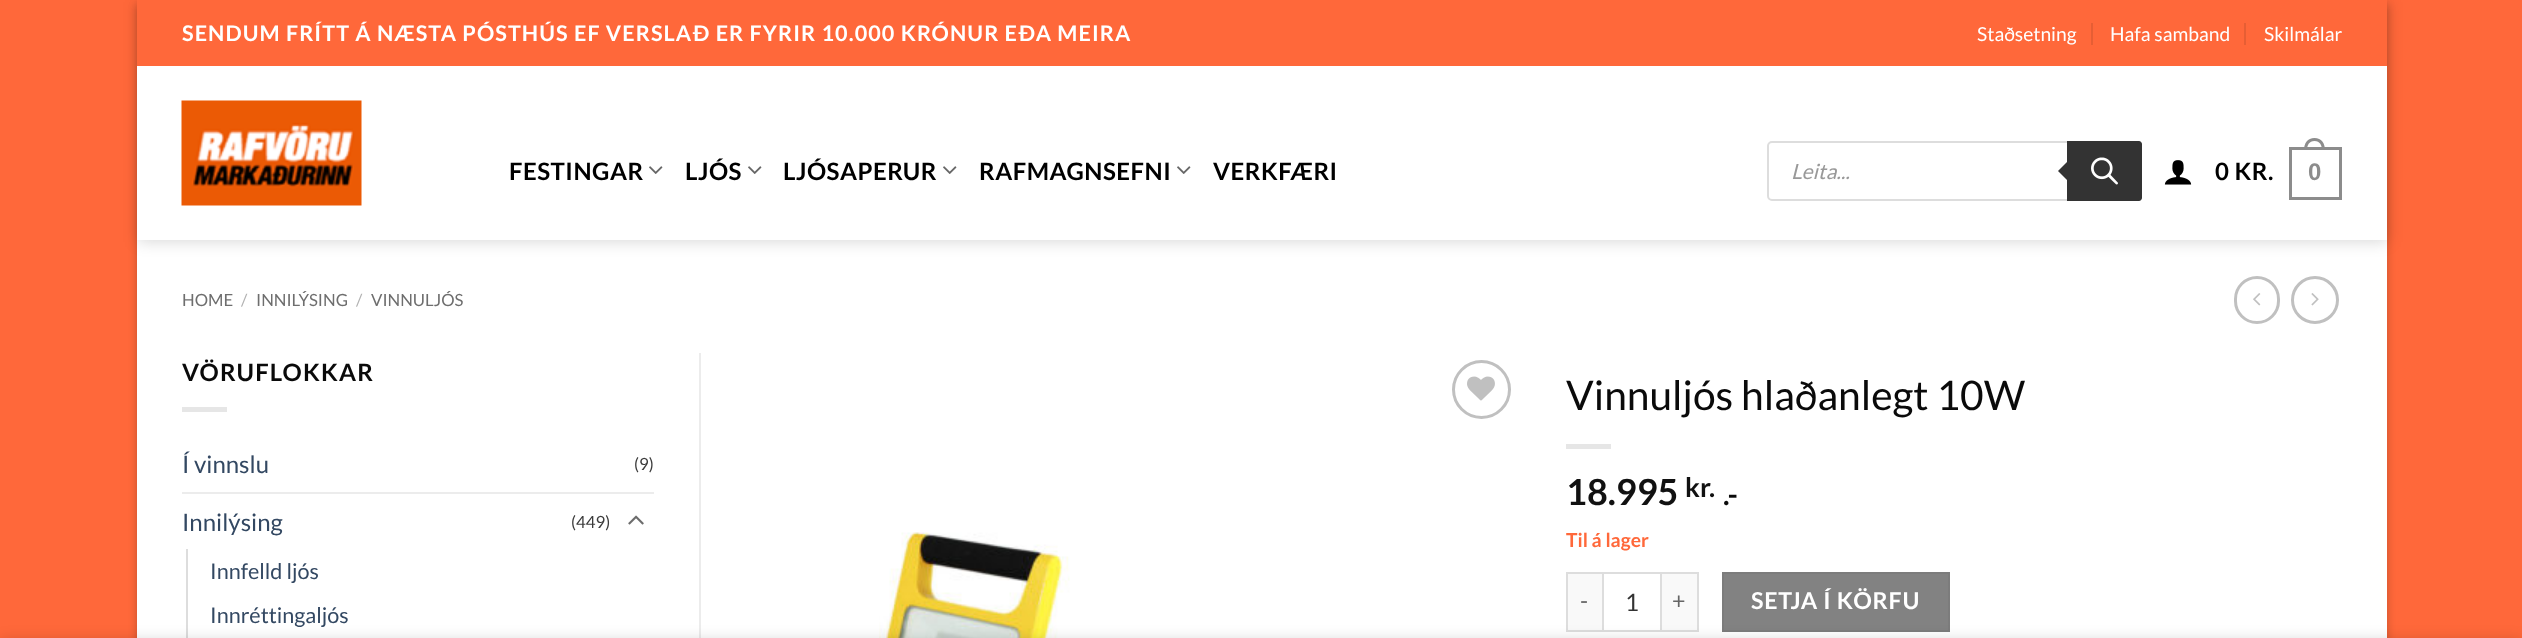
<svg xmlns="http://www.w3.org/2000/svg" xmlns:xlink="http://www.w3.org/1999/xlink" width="2522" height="638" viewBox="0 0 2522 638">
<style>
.cls-1{font:bold 21.6px Lato;letter-spacing:1.08px;fill:#ffffff}
.cls-2{font:19.25px Lato;fill:#ffffff}
.cls-3{font:bold 24px Lato;letter-spacing:0.5px;fill:#000000}
.cls-4{font:italic 21px Lato;fill:#999999}
.cls-5{font:bold 24px Liberation Sans;letter-spacing:0.5px;fill:#8c8c8c}
.cls-6{font:16.75px Lato;fill:#6e6e6e}
.cls-7{font:16.75px Lato;fill:#b2b2b2}
.cls-8{font:bold 24px Lato;letter-spacing:1.25px;fill:#0a0a0a}
.cls-9{font:24px Lato;fill:#334862}
.cls-10{font:16.75px Lato;fill:#3b3b3b}
.cls-11{font:21.6px Lato;fill:#334862}
.cls-12{font:40.75px Lato;fill:#0a0a0a}
.cls-13{font:bold 36px Lato;fill:#111111}
.cls-14{font:bold 27px Lato;fill:#111111}
.cls-15{font:bold 29px Lato;fill:#0a0a0a}
.cls-16{font:bold 19.25px Lato;fill:#ff683a}
.cls-17{font:23.25px Lato;letter-spacing:0.75px;fill:#666666}
.cls-18{font:24px Lato;fill:#333333}
.cls-19{font:bold 23.25px Lato;letter-spacing:0.75px;fill:#ffffff}
</style>
<rect width="100%" height="100%" fill="#ff683a"/>
<rect fill="#000000" fill-opacity="0.23" filter="blur(4.5px)" x="137" y="5" width="2250" height="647"/>
<rect fill="#ffffff" x="137" y="240" width="2250" height="398"/>
<rect fill="#000000" fill-opacity="0.15" filter="blur(7.5px)" x="138" y="2" width="2250" height="240"/>
<rect fill="#ff683a" x="137" y="0" width="2250" height="66"/>
<rect fill="#e65e34" x="2091" y="23" width="2" height="22"/>
<rect fill="#e65e34" x="2244" y="23" width="2" height="22"/>
<rect fill="#ffffff" x="137" y="66" width="2250" height="174"/>
<image xlink:href="image0.png" x="181" y="100" width="181" height="106"/>
<image xlink:href="image1.png" x="649" y="166" width="14" height="8"/>
<image xlink:href="image1.png" x="748" y="166" width="14" height="8"/>
<image xlink:href="image1.png" x="943" y="166" width="14" height="8"/>
<image xlink:href="image1.png" x="1177" y="166" width="14" height="8"/>
<rect fill="none" stroke="#dddddd" stroke-width="2" x="1768" y="142" width="373" height="58" rx="4"/>
<path fill="#333333" d="M2067 141H2139C2140.5 141 2142 142.5 2142 144V198C2142 199.5 2140.5 201 2139 201H2067Z"/>
<path fill="#333333" d="M2070 159V183L2058 171Z"/>
<image xlink:href="image2.png" x="2091" y="157" width="27" height="28"/>
<image xlink:href="image3.png" x="2164" y="160" width="28" height="25"/>
<rect fill="none" stroke="#8c8c8c" stroke-width="3" x="2290.5" y="148.5" width="50" height="50"/>
<path fill="#8c8c8c" fill-rule="evenodd" d="M2314.5 138C2321.5 138 2325 143.5 2325 150H2304C2304 143.5 2307.5 138 2314.5 138ZM2314.5 141C2320 141 2322 145.5 2322 150H2307C2307 145.5 2309 141 2314.5 141Z"/>
<rect fill="none" stroke="#c0c0c0" stroke-width="3" x="2235.5" y="277.5" width="43" height="45" rx="21.5"/>
<image xlink:href="image4.png" x="2253" y="293" width="8" height="13"/>
<circle fill="none" stroke="#c0c0c0" stroke-width="3" cx="2315" cy="300" r="22.5"/>
<image xlink:href="image5.png" x="2311" y="293" width="8" height="13"/>
<rect fill="#e6e6e6" x="182" y="407" width="45" height="5"/>
<rect fill="#ececec" x="182" y="492" width="472" height="2"/>
<image xlink:href="image6.png" x="628" y="515" width="16" height="10"/>
<rect fill="#dddddd" x="186" y="549" width="2" height="89"/>
<rect fill="#ececec" x="699" y="353" width="2" height="285"/>
<circle fill="none" stroke="#c0c0c0" stroke-width="3" cx="1481.5" cy="389.5" r="28"/>
<image xlink:href="image7.png" x="1467" y="376" width="28" height="25"/>
<image xlink:href="image8.png" x="879" y="532" width="191" height="106"/>
<rect fill="#e6e6e6" x="1566" y="444" width="45" height="5"/>
<rect fill="#f9f9f9" x="1568" y="574" width="34" height="56"/>
<rect fill="#dddddd" x="1566" y="572" width="36" height="2"/>
<rect fill="#dddddd" x="1566" y="630" width="36" height="2"/>
<rect fill="#dddddd" x="1566" y="572" width="2" height="60"/>
<rect fill="none" stroke="#dddddd" stroke-width="2" x="1603" y="573" width="58" height="58"/>
<rect fill="#f9f9f9" x="1662" y="574" width="35" height="56"/>
<rect fill="#dddddd" x="1662" y="572" width="36" height="2"/>
<rect fill="#dddddd" x="1697" y="572" width="2" height="60"/>
<rect fill="#dddddd" x="1662" y="630" width="36" height="2"/>
<rect fill="#828282" stroke="#7c7c7c" stroke-width="2" x="1723" y="573" width="226" height="58"/>
<rect fill="#000000" fill-opacity="0.14" filter="blur(7px)" x="0" y="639" width="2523" height="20"/>
<text class="cls-1" x="182" y="41">SENDUM FRÍTT Á NÆSTA PÓSTHÚS EF VERSLAÐ ER FYRIR 10.000 KRÓNUR EÐA MEIRA</text>
<text class="cls-2" x="1977" y="41">Staðsetning</text>
<text class="cls-2" x="2110" y="41">Hafa samband</text>
<text class="cls-2" x="2264" y="41">Skilmálar</text>
<text class="cls-3" x="509" y="180">FESTINGAR</text>
<text class="cls-3" x="685" y="180">LJÓS</text>
<text class="cls-3" x="783" y="180">LJÓSAPERUR</text>
<text class="cls-3" x="979" y="180">RAFMAGNSEFNI</text>
<text class="cls-3" x="1213" y="180">VERKFÆRI</text>
<text class="cls-4" x="1791" y="179">Leita...</text>
<text class="cls-3" x="2215" y="180">0 KR.</text>
<text class="cls-5" x="2308" y="180">0</text>
<text class="cls-6" x="182" y="306">HOME</text>
<text class="cls-7" x="241" y="306">/</text>
<text class="cls-6" x="256" y="306">INNILÝSING</text>
<text class="cls-7" x="356" y="306">/</text>
<text class="cls-6" x="371" y="306">VINNULJÓS</text>
<text class="cls-8" x="182" y="381">VÖRUFLOKKAR</text>
<text class="cls-9" x="182" y="473">Í vinnslu</text>
<text class="cls-10" x="634" y="470">(9)</text>
<text class="cls-9" x="182" y="531">Innilýsing</text>
<text class="cls-10" x="571" y="528">(449)</text>
<text class="cls-11" x="210" y="579">Innfelld ljós</text>
<text class="cls-11" x="210" y="623">Innréttingaljós</text>
<text class="cls-12" x="1566" y="410">Vinnuljós hlaðanlegt 10W</text>
<text class="cls-13" x="1566" y="505">18.995</text>
<text class="cls-14" x="1685" y="497">kr.</text>
<text class="cls-15" x="1723" y="505">.-</text>
<text class="cls-16" x="1566" y="547">Til á lager</text>
<text class="cls-17" x="1580" y="609">-</text>
<text class="cls-18" x="1625" y="611">1</text>
<text class="cls-17" x="1672" y="609">+</text>
<text class="cls-19" x="1751" y="609">SETJA Í KÖRFU</text>
</svg>
